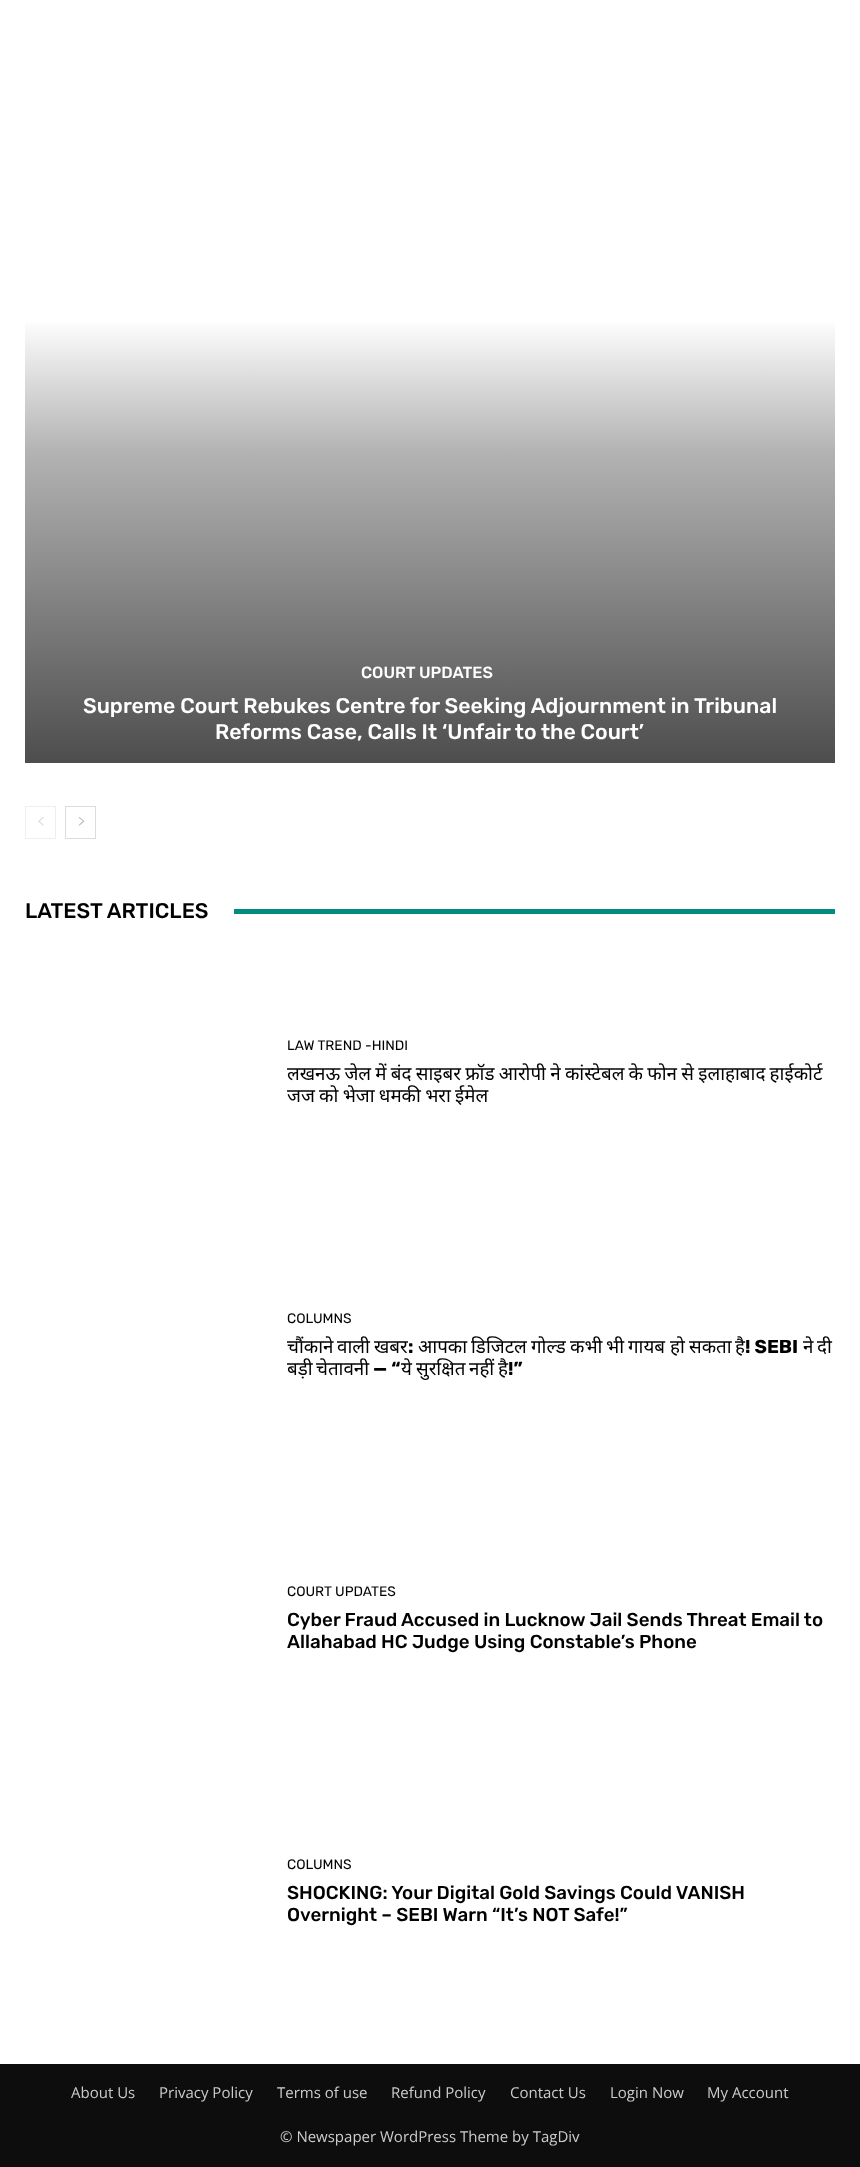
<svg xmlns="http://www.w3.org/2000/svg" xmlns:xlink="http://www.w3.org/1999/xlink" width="860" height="2167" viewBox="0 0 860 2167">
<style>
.cls-1{font:500 16.25px Rubik;fill:#ffffff}
.cls-2{font:500 21.25px Rubik;fill:#ffffff}
.cls-3{font:500 21.25px Rubik;fill:#000000}
.cls-4{font:13.75px Rubik;fill:#000000}
.cls-5{font:18.75px Noto Sans;fill:#000000}
.cls-6{font:bold 18.75px Rubik;fill:#000000}
.cls-7{font:500 18.75px Rubik;fill:#000000}
.cls-8{font:15px Open Sans;fill:#cccccc}
</style>
<defs>
<linearGradient id="g1" gradientUnits="userSpaceOnUse" x1="430" y1="763" x2="430" y2="-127"><stop offset="0" stop-color="#4d4d4d"/><stop offset="0.35" stop-color="#b3b3b3"/><stop offset="0.5" stop-color="#ffffff"/><stop offset="1" stop-color="#ffffff"/></linearGradient>
</defs>
<rect width="100%" height="100%" fill="#ffffff"/>
<rect fill="url(#g1)" x="25" y="322" width="810" height="441"/>
<rect fill="none" stroke="#eeeeee" x="25.5" y="806.5" width="30" height="32"/>
<image xlink:href="image0.png" x="38" y="817" width="6" height="9"/>
<rect fill="none" stroke="#dcdcdc" x="65.5" y="806.5" width="30" height="32"/>
<image xlink:href="image1.png" x="78" y="817" width="7" height="9"/>
<rect fill="#008d7f" x="234" y="909" width="601" height="5"/>
<rect fill="#0d0d0d" x="0" y="2064" width="860" height="103"/>
<text class="cls-1" x="361" y="678">COURT UPDATES</text>
<text class="cls-2" x="83" y="713">Supreme Court Rebukes Centre for Seeking Adjournment in Tribunal</text>
<text class="cls-2" x="215" y="739">Reforms Case, Calls It ‘Unfair to the Court’</text>
<text class="cls-3" x="25" y="918">LATEST ARTICLES</text>
<text class="cls-4" x="287" y="1050">LAW TREND -HINDI</text>
<text class="cls-5"><tspan x="287" y="1080" word-spacing="-0.6">लखनऊ जेल में बंद साइबर फ्रॉड आरोपी ने कांस्टेबल के फोन से इलाहाबाद हाईकोर्ट</tspan><tspan x="287" y="1102" word-spacing="-0.6">जज को भेजा धमकी भरा ईमेल</tspan></text>
<text class="cls-4" x="287" y="1323">COLUMNS</text>
<text class="cls-5" x="287" y="1353">चौंकाने</text>
<text class="cls-5" x="337" y="1353">वाली</text>
<text class="cls-5" x="374" y="1353">खबर</text>
<text class="cls-6" x="408" y="1353">:</text>
<text class="cls-5" x="418" y="1353">आपका</text>
<text class="cls-5" x="471" y="1353">डिजिटल</text>
<text class="cls-5" x="531" y="1353">गोल्ड</text>
<text class="cls-5" x="570" y="1353">कभी</text>
<text class="cls-5" x="606" y="1353">भी</text>
<text class="cls-5" x="628" y="1353">गायब</text>
<text class="cls-5" x="670" y="1353">हो</text>
<text class="cls-5" x="689" y="1353">सकता</text>
<text class="cls-5" x="735" y="1353">है</text>
<text class="cls-6" x="745" y="1353">! SEBI</text>
<text class="cls-5" x="803" y="1353">ने</text>
<text class="cls-5" x="817" y="1353">दी</text>
<text class="cls-5" x="287" y="1375">बड़ी</text>
<text class="cls-5" x="316" y="1375">चेतावनी</text>
<text class="cls-6" x="373" y="1375">— “</text>
<text class="cls-5" x="401" y="1375">ये</text>
<text class="cls-5" x="416" y="1375">सुरक्षित</text>
<text class="cls-5" x="469" y="1375">नहीं</text>
<text class="cls-5" x="498" y="1375">है</text>
<text class="cls-6" x="508" y="1375">!”</text>
<text class="cls-4" x="287" y="1596">COURT UPDATES</text>
<text class="cls-7"><tspan x="287" y="1626">Cyber Fraud Accused in Lucknow Jail Sends Threat Email to</tspan><tspan x="287" y="1648">Allahabad HC Judge Using Constable’s Phone</tspan></text>
<text class="cls-4" x="287" y="1869">COLUMNS</text>
<text class="cls-7"><tspan x="287" y="1899">SHOCKING: Your Digital Gold Savings Could VANISH</tspan><tspan x="287" y="1921">Overnight – SEBI Warn “It’s NOT Safe!”</tspan></text>
<text class="cls-8" x="71" y="2098">About Us</text>
<text class="cls-8" x="159" y="2098">Privacy Policy</text>
<text class="cls-8" x="277" y="2098">Terms of use</text>
<text class="cls-8" x="391" y="2098">Refund Policy</text>
<text class="cls-8" x="510" y="2098">Contact Us</text>
<text class="cls-8" x="610" y="2098">Login Now</text>
<text class="cls-8" x="707" y="2098">My Account</text>
<text class="cls-8" x="280" y="2142">© Newspaper WordPress Theme by TagDiv</text>
</svg>
